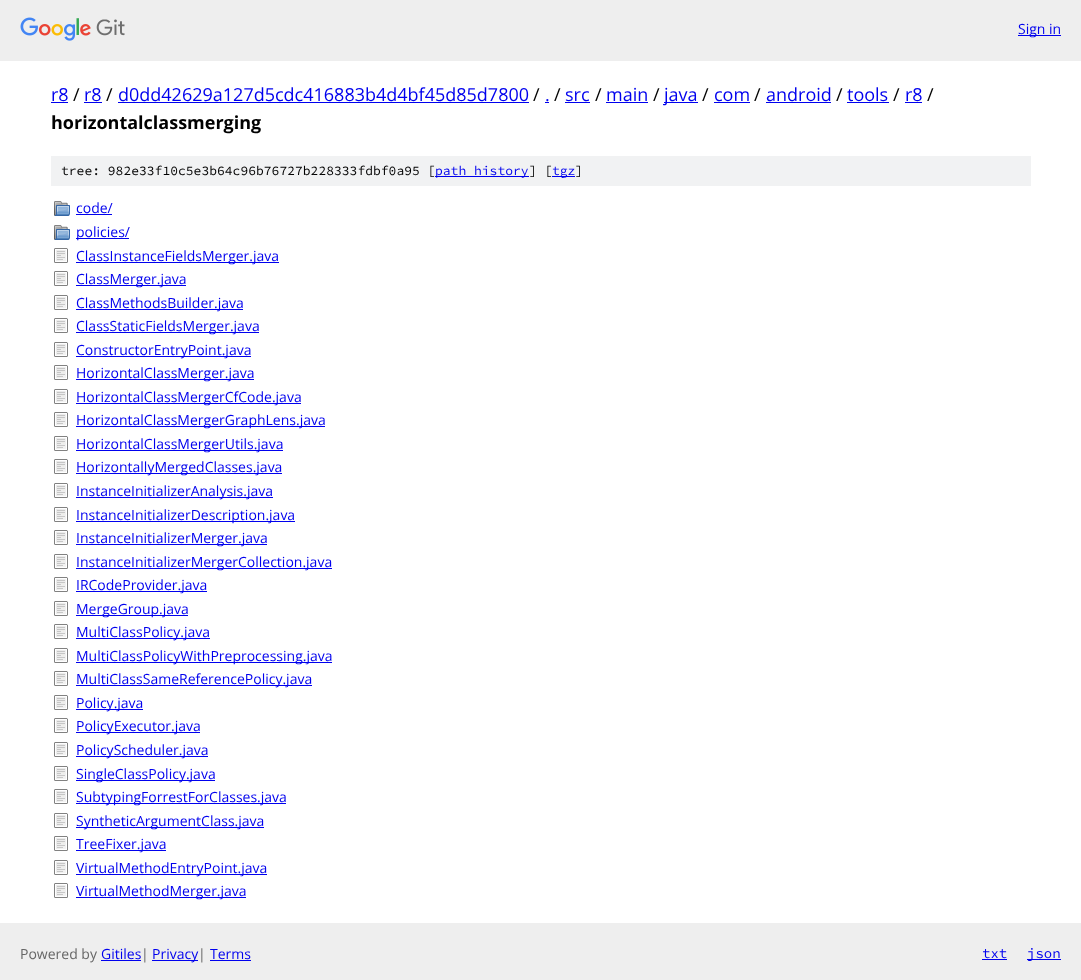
<svg xmlns="http://www.w3.org/2000/svg" xmlns:xlink="http://www.w3.org/1999/xlink" width="1081" height="980" viewBox="0 0 1081 980">
<style>
.cls-1{font:14px Open Sans;fill:#0000ee}
.cls-2{font:18px Open Sans;fill:#0000ee}
.cls-3{font:18px Open Sans;fill:#000000}
.cls-4{font:bold 18px Open Sans;fill:#000000}
.cls-5{font:200 13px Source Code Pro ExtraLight;fill:#000000}
.cls-6{font:200 13px Source Code Pro ExtraLight;fill:#0000ee}
.cls-7{font:14px Open Sans;fill:#666666}
.cls-8{font:200 14px Source Code Pro ExtraLight;fill:#0000ee}
</style>
<rect width="100%" height="100%" fill="#ffffff"/>
<rect fill="#eeeeee" x="0" y="0" width="1081" height="61"/>
<image xlink:href="image0.png" x="20" y="17" width="105" height="24"/>
<rect fill="#0000ee" x="1018" y="35" width="43" height="1"/>
<rect fill="#0000ee" x="51" y="102" width="17" height="1"/>
<rect fill="#0000ee" x="84" y="102" width="18" height="1"/>
<rect fill="#0000ee" x="118" y="102" width="411" height="1"/>
<rect fill="#0000ee" x="545" y="102" width="4" height="1"/>
<rect fill="#0000ee" x="565" y="102" width="25" height="1"/>
<rect fill="#0000ee" x="606" y="102" width="42" height="1"/>
<rect fill="#0000ee" x="664" y="102" width="34" height="1"/>
<rect fill="#0000ee" x="714" y="102" width="36" height="1"/>
<rect fill="#0000ee" x="766" y="102" width="65" height="1"/>
<rect fill="#0000ee" x="847" y="102" width="42" height="1"/>
<rect fill="#0000ee" x="905" y="102" width="17" height="1"/>
<rect fill="#f1f2f3" x="51" y="156" width="980" height="30"/>
<rect fill="#0000ee" x="435" y="176" width="94" height="1"/>
<rect fill="#0000ee" x="552" y="176" width="23" height="1"/>
<image xlink:href="image1.png" x="54" y="201" width="16" height="15"/>
<rect fill="#0000ee" x="76" y="214" width="36" height="1"/>
<image xlink:href="image1.png" x="54" y="225" width="16" height="15"/>
<rect fill="#0000ee" x="76" y="238" width="53" height="1"/>
<image xlink:href="image2.png" x="54" y="248" width="14" height="15"/>
<rect fill="#0000ee" x="76" y="262" width="203" height="1"/>
<image xlink:href="image2.png" x="54" y="271" width="14" height="15"/>
<rect fill="#0000ee" x="76" y="285" width="110" height="1"/>
<image xlink:href="image2.png" x="54" y="295" width="14" height="15"/>
<rect fill="#0000ee" x="76" y="309" width="167" height="1"/>
<image xlink:href="image2.png" x="54" y="318" width="14" height="15"/>
<rect fill="#0000ee" x="76" y="332" width="183" height="1"/>
<image xlink:href="image2.png" x="54" y="342" width="14" height="15"/>
<rect fill="#0000ee" x="76" y="356" width="175" height="1"/>
<image xlink:href="image2.png" x="54" y="365" width="14" height="15"/>
<rect fill="#0000ee" x="76" y="379" width="178" height="1"/>
<image xlink:href="image2.png" x="54" y="389" width="14" height="15"/>
<rect fill="#0000ee" x="76" y="403" width="225" height="1"/>
<image xlink:href="image2.png" x="54" y="412" width="14" height="15"/>
<rect fill="#0000ee" x="76" y="426" width="249" height="1"/>
<image xlink:href="image2.png" x="54" y="436" width="14" height="15"/>
<rect fill="#0000ee" x="76" y="450" width="207" height="1"/>
<image xlink:href="image2.png" x="54" y="459" width="14" height="15"/>
<rect fill="#0000ee" x="76" y="473" width="206" height="1"/>
<image xlink:href="image2.png" x="54" y="483" width="14" height="15"/>
<rect fill="#0000ee" x="76" y="497" width="197" height="1"/>
<image xlink:href="image2.png" x="54" y="507" width="14" height="15"/>
<rect fill="#0000ee" x="76" y="521" width="219" height="1"/>
<image xlink:href="image2.png" x="54" y="530" width="14" height="15"/>
<rect fill="#0000ee" x="76" y="544" width="191" height="1"/>
<image xlink:href="image2.png" x="54" y="554" width="14" height="15"/>
<rect fill="#0000ee" x="76" y="568" width="256" height="1"/>
<image xlink:href="image2.png" x="54" y="577" width="14" height="15"/>
<rect fill="#0000ee" x="76" y="591" width="131" height="1"/>
<image xlink:href="image2.png" x="54" y="601" width="14" height="15"/>
<rect fill="#0000ee" x="76" y="615" width="112" height="1"/>
<image xlink:href="image2.png" x="54" y="624" width="14" height="15"/>
<rect fill="#0000ee" x="76" y="638" width="134" height="1"/>
<image xlink:href="image2.png" x="54" y="648" width="14" height="15"/>
<rect fill="#0000ee" x="76" y="662" width="256" height="1"/>
<image xlink:href="image2.png" x="54" y="671" width="14" height="15"/>
<rect fill="#0000ee" x="76" y="685" width="236" height="1"/>
<image xlink:href="image2.png" x="54" y="695" width="14" height="15"/>
<rect fill="#0000ee" x="76" y="709" width="67" height="1"/>
<image xlink:href="image2.png" x="54" y="718" width="14" height="15"/>
<rect fill="#0000ee" x="76" y="732" width="124" height="1"/>
<image xlink:href="image2.png" x="54" y="742" width="14" height="15"/>
<rect fill="#0000ee" x="76" y="756" width="132" height="1"/>
<image xlink:href="image2.png" x="54" y="766" width="14" height="15"/>
<rect fill="#0000ee" x="76" y="780" width="139" height="1"/>
<image xlink:href="image2.png" x="54" y="789" width="14" height="15"/>
<rect fill="#0000ee" x="76" y="803" width="210" height="1"/>
<image xlink:href="image2.png" x="54" y="813" width="14" height="15"/>
<rect fill="#0000ee" x="76" y="827" width="188" height="1"/>
<image xlink:href="image2.png" x="54" y="836" width="14" height="15"/>
<rect fill="#0000ee" x="76" y="850" width="90" height="1"/>
<image xlink:href="image2.png" x="54" y="860" width="14" height="15"/>
<rect fill="#0000ee" x="76" y="874" width="191" height="1"/>
<image xlink:href="image2.png" x="54" y="883" width="14" height="15"/>
<rect fill="#0000ee" x="76" y="897" width="170" height="1"/>
<rect fill="#eeeeee" x="0" y="923" width="1081" height="57"/>
<rect fill="#0000ee" x="101" y="960" width="40" height="1"/>
<rect fill="#0000ee" x="152" y="960" width="46" height="1"/>
<rect fill="#0000ee" x="210" y="960" width="41" height="1"/>
<rect fill="#0000ee" x="982" y="959" width="25" height="1"/>
<rect fill="#0000ee" x="1027" y="959" width="34" height="1"/>
<text class="cls-1" x="1018" y="34">Sign in</text>
<text class="cls-2" x="51" y="101">r8</text>
<text class="cls-3" x="73" y="101">/</text>
<text class="cls-2" x="84" y="101">r8</text>
<text class="cls-3" x="106" y="101">/</text>
<text class="cls-2" x="118" y="101">d0dd42629a127d5cdc416883b4d4bf45d85d7800</text>
<text class="cls-3" x="533" y="101">/</text>
<text class="cls-2" x="545" y="101">.</text>
<text class="cls-3" x="554" y="101">/</text>
<text class="cls-2" x="565" y="101">src</text>
<text class="cls-3" x="595" y="101">/</text>
<text class="cls-2" x="606" y="101">main</text>
<text class="cls-3" x="653" y="101">/</text>
<text class="cls-2" x="664" y="101">java</text>
<text class="cls-3" x="702" y="101">/</text>
<text class="cls-2" x="714" y="101">com</text>
<text class="cls-3" x="754" y="101">/</text>
<text class="cls-2" x="766" y="101">android</text>
<text class="cls-3" x="836" y="101">/</text>
<text class="cls-2" x="847" y="101">tools</text>
<text class="cls-3" x="893" y="101">/</text>
<text class="cls-2" x="905" y="101">r8</text>
<text class="cls-3" x="927" y="101">/</text>
<text class="cls-4" x="51" y="129">horizontalclassmerging</text>
<text class="cls-5" x="61" y="175">tree: 982e33f10c5e3b64c96b76727b228333fdbf0a95 [</text>
<text class="cls-6" x="435" y="175">path history</text>
<text class="cls-5" x="529" y="175">] [</text>
<text class="cls-6" x="552" y="175">tgz</text>
<text class="cls-5" x="575" y="175">]</text>
<text class="cls-1"><tspan x="76" y="213">code/</tspan><tspan x="76" y="237">policies/</tspan><tspan x="76" y="261">ClassInstanceFieldsMerger.java</tspan><tspan x="76" y="284">ClassMerger.java</tspan><tspan x="76" y="308">ClassMethodsBuilder.java</tspan><tspan x="76" y="331">ClassStaticFieldsMerger.java</tspan><tspan x="76" y="355">ConstructorEntryPoint.java</tspan><tspan x="76" y="378">HorizontalClassMerger.java</tspan><tspan x="76" y="402">HorizontalClassMergerCfCode.java</tspan><tspan x="76" y="425">HorizontalClassMergerGraphLens.java</tspan><tspan x="76" y="449">HorizontalClassMergerUtils.java</tspan><tspan x="76" y="472">HorizontallyMergedClasses.java</tspan><tspan x="76" y="496">InstanceInitializerAnalysis.java</tspan><tspan x="76" y="520">InstanceInitializerDescription.java</tspan><tspan x="76" y="543">InstanceInitializerMerger.java</tspan><tspan x="76" y="567">InstanceInitializerMergerCollection.java</tspan><tspan x="76" y="590">IRCodeProvider.java</tspan><tspan x="76" y="614">MergeGroup.java</tspan><tspan x="76" y="637">MultiClassPolicy.java</tspan><tspan x="76" y="661">MultiClassPolicyWithPreprocessing.java</tspan><tspan x="76" y="684">MultiClassSameReferencePolicy.java</tspan><tspan x="76" y="708">Policy.java</tspan><tspan x="76" y="731">PolicyExecutor.java</tspan><tspan x="76" y="755">PolicyScheduler.java</tspan><tspan x="76" y="779">SingleClassPolicy.java</tspan><tspan x="76" y="802">SubtypingForrestForClasses.java</tspan><tspan x="76" y="826">SyntheticArgumentClass.java</tspan><tspan x="76" y="849">TreeFixer.java</tspan><tspan x="76" y="873">VirtualMethodEntryPoint.java</tspan><tspan x="76" y="896">VirtualMethodMerger.java</tspan></text>
<text class="cls-7" x="20" y="959">Powered by</text>
<text class="cls-1" x="101" y="959">Gitiles</text>
<text class="cls-7" x="141" y="959">|</text>
<text class="cls-1" x="152" y="959">Privacy</text>
<text class="cls-7" x="198" y="959">|</text>
<text class="cls-1" x="210" y="959">Terms</text>
<text class="cls-8" x="982" y="958">txt</text>
<text class="cls-8" x="1027" y="958">json</text>
</svg>
